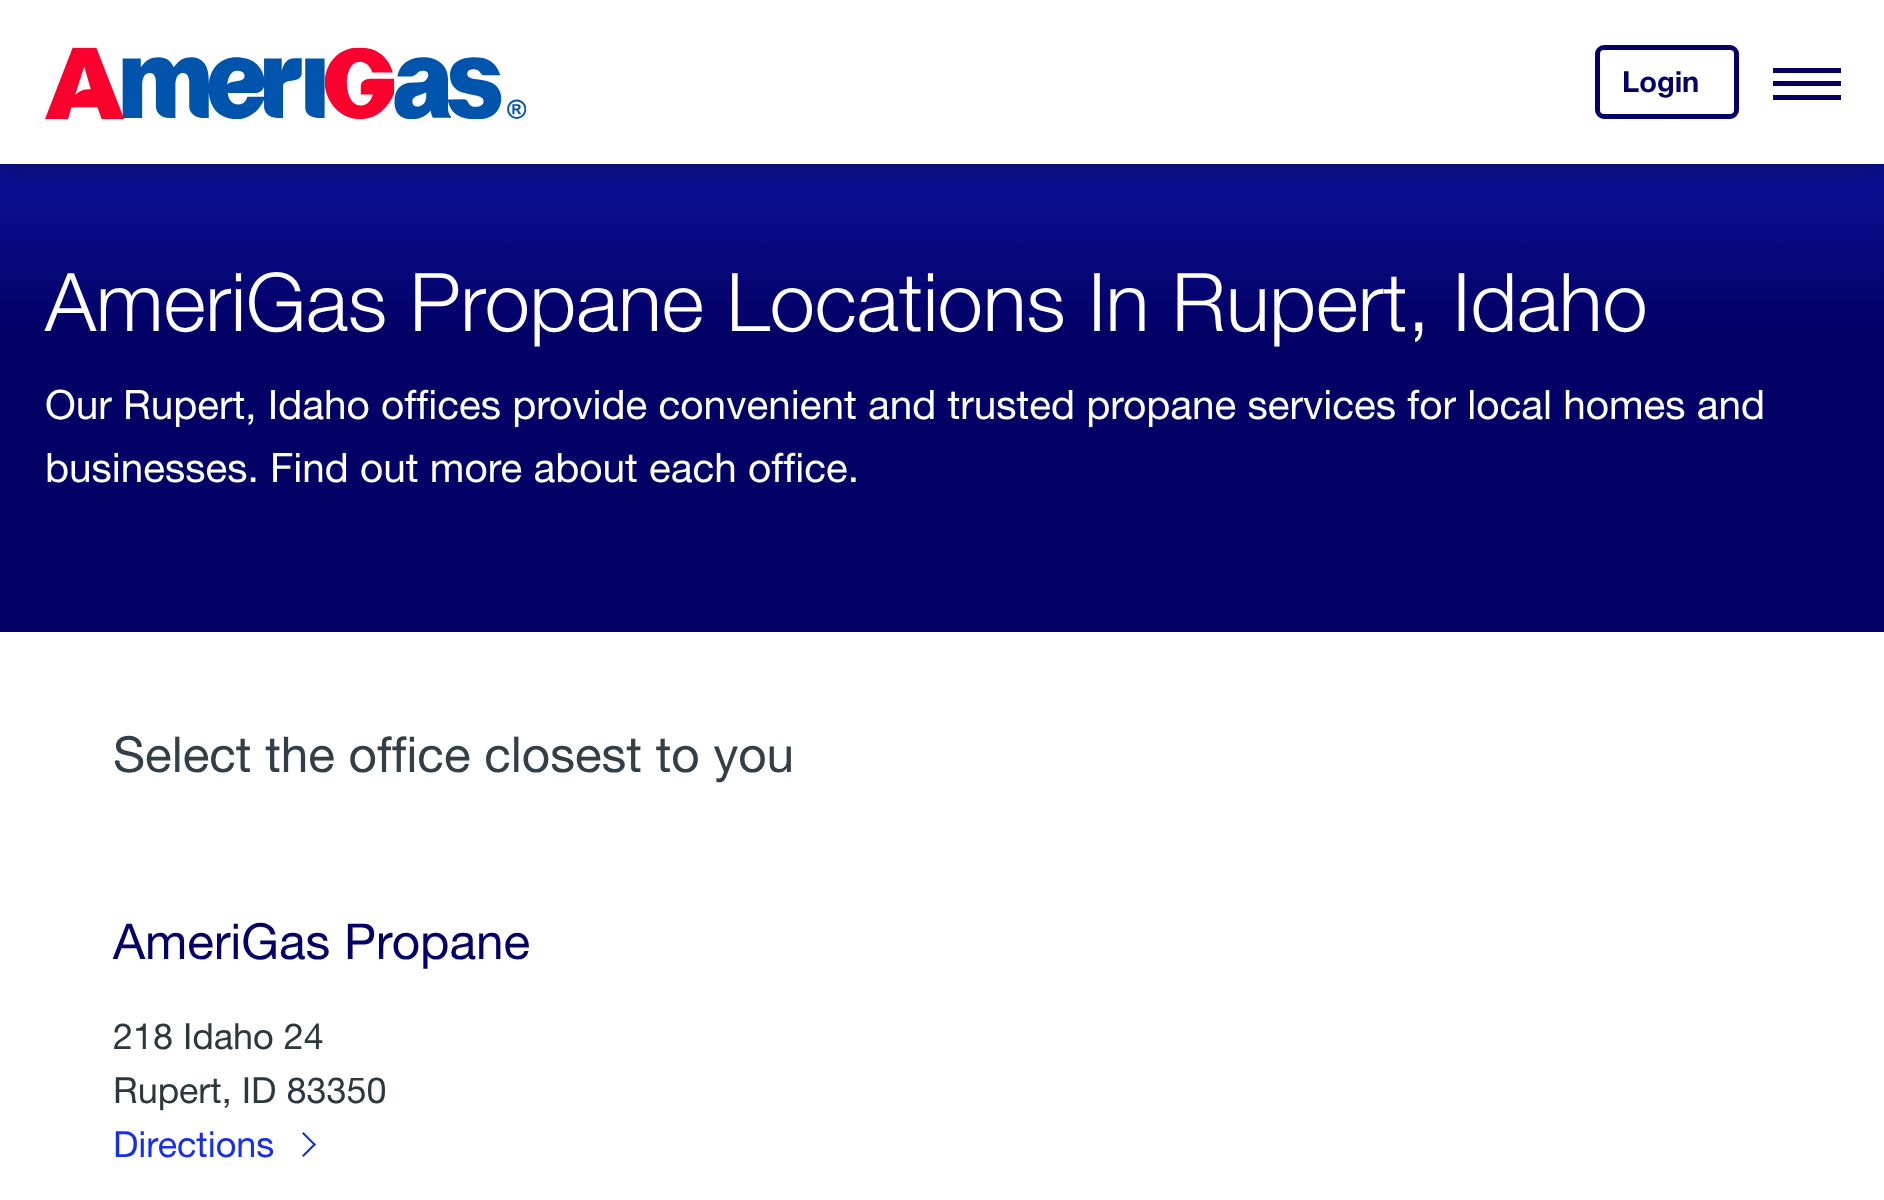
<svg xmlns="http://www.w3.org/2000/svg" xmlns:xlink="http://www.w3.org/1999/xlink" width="1884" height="1200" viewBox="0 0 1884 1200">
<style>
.cls-1{font:bold 29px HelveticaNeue;fill:#030066}
.cls-2{font:300 81px HelveticaNeue;fill:#ffffff}
.cls-3{font:40.5px HelveticaNeue;fill:#ffffff}
.cls-4{font:49.5px HelveticaNeue;fill:#333e47}
.cls-5{font:49.5px HelveticaNeue;fill:#030066}
.cls-6{font:36px HelveticaNeue;fill:#2d373e}
.cls-7{font:36px HelveticaNeue;fill:#172fe6}
</style>
<defs>
<linearGradient id="g1" gradientUnits="userSpaceOnUse" x1="943" y1="-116" x2="943" y2="632"><stop offset="0" stop-color="#172fe6"/><stop offset="0.6" stop-color="#030066"/></linearGradient>
<clipPath id="clip1"><rect x="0" y="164" width="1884" height="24"/></clipPath>
</defs>
<rect width="100%" height="100%" fill="#ffffff"/>
<rect fill="url(#g1)" x="0" y="164" width="1884" height="468"/>
<g clip-path="url(#clip1)">
<rect fill="#000000" fill-opacity="0.25" filter="blur(11px)" x="0" y="9" width="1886" height="164"/>
</g>
<image xlink:href="image0.png" x="45" y="47" width="482" height="72"/>
<rect fill="none" stroke="#040066" stroke-width="5" x="1597.5" y="47.5" width="139" height="69" rx="6.5"/>
<rect fill="#040066" x="1773" y="81" width="68" height="5"/>
<rect fill="#040066" x="1773" y="68" width="68" height="5"/>
<rect fill="#040066" x="1773" y="95" width="68" height="5"/>
<path fill="#172fe6" d="M302 1133.5L303.5 1132L316 1144.5L314.5 1146Z"/>
<path fill="#172fe6" d="M302 1155.5L314.5 1143L316 1144.5L303.5 1157Z"/>
<text class="cls-1" x="1622" y="92">Login</text>
<text class="cls-2" x="45" y="331">AmeriGas Propane Locations In Rupert, Idaho</text>
<text class="cls-3"><tspan x="45" y="419">Our Rupert, Idaho offices provide convenient and trusted propane services for local homes and</tspan><tspan x="45" y="482">businesses. Find out more about each office.</tspan></text>
<text class="cls-4" x="113" y="772">Select the office closest to you</text>
<text class="cls-5" x="113" y="959">AmeriGas Propane</text>
<text class="cls-6"><tspan x="113" y="1049">218 Idaho 24</tspan><tspan x="113" y="1103">Rupert, ID 83350</tspan></text>
<text class="cls-7" x="113" y="1157">Directions</text>
</svg>
